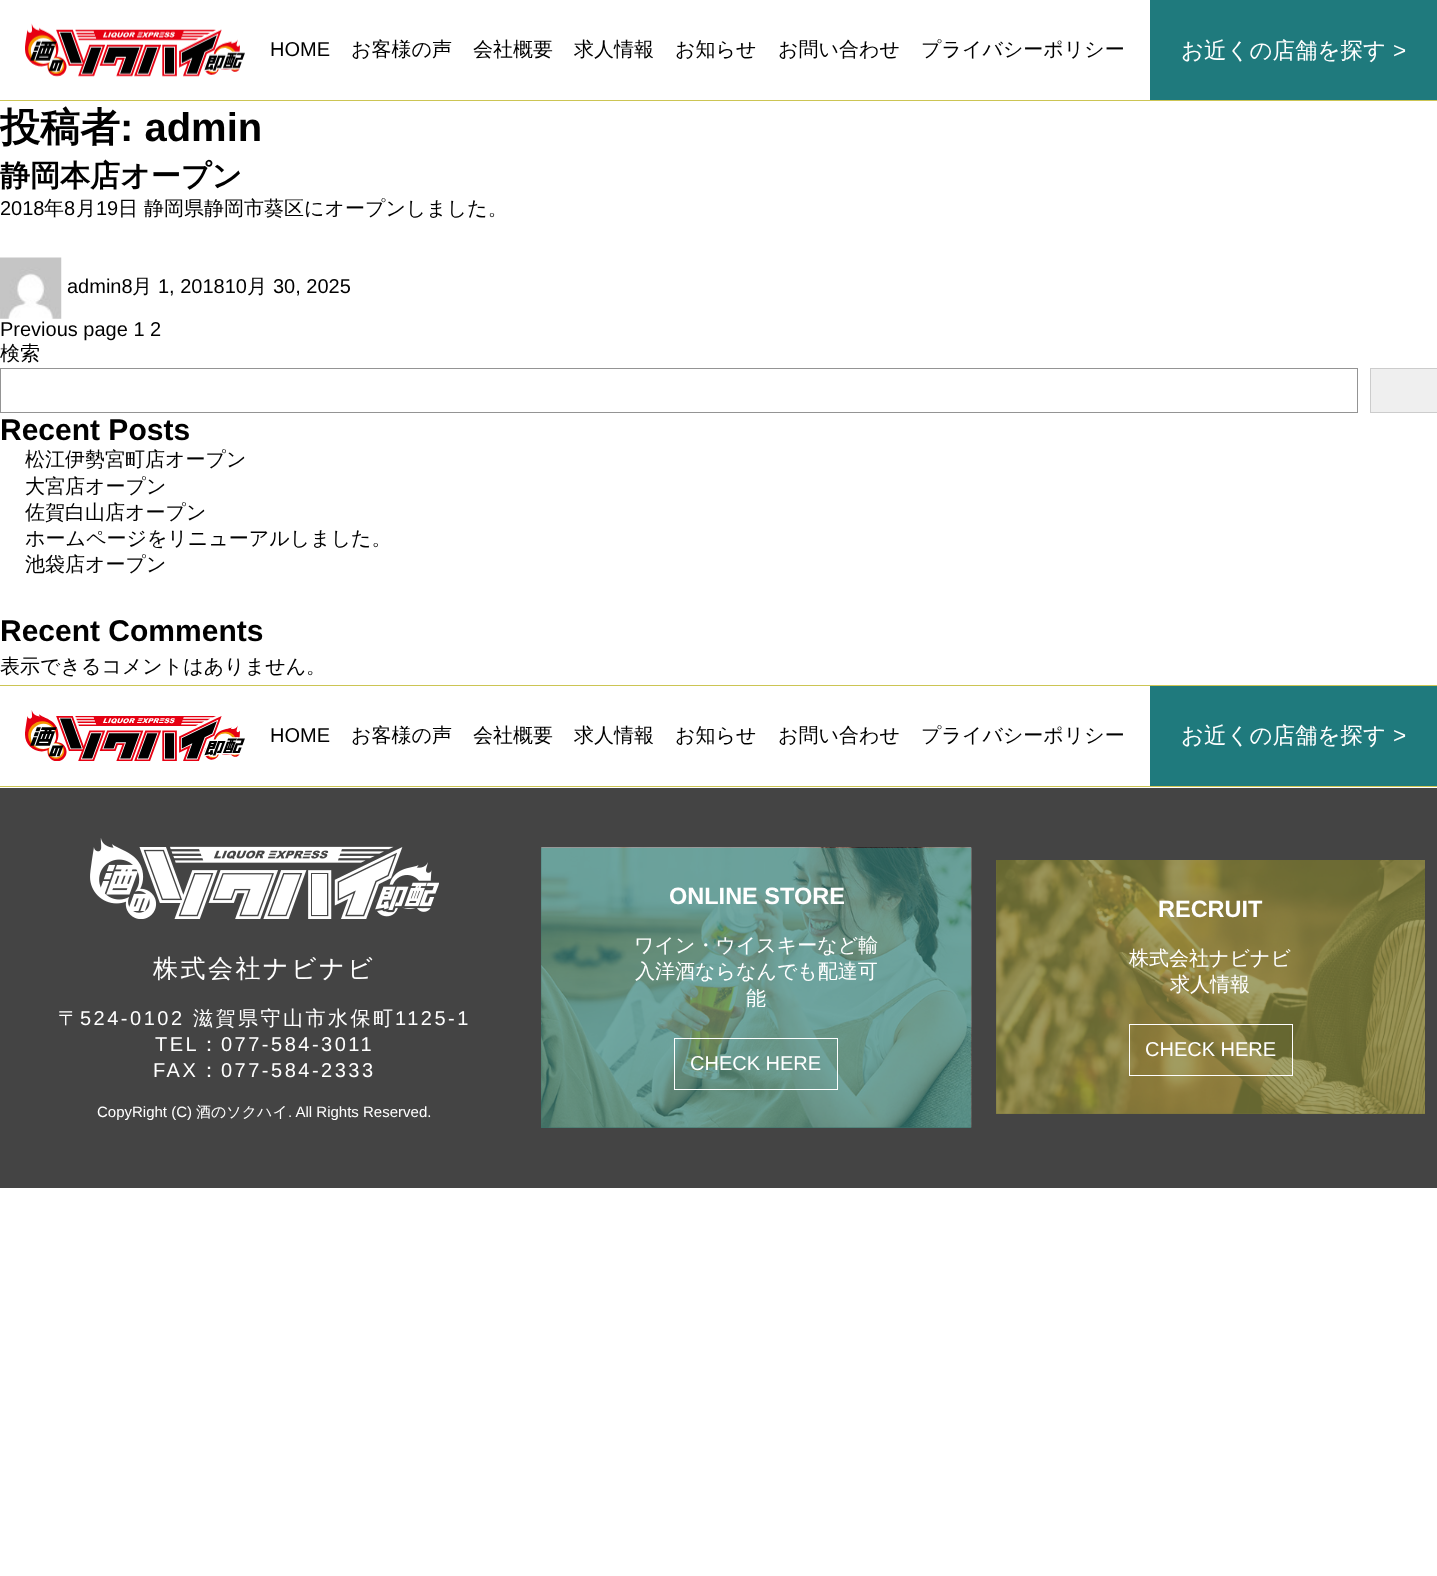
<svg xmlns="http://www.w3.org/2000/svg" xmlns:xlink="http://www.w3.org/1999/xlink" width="1437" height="1576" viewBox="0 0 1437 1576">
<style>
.cls-1{font:20px Liberation Sans;fill:#000000}
.cls-2{font:500 20px WenQuanYi Zen Hei;fill:#000000}
.cls-3{font:500 22.5px WenQuanYi Zen Hei;fill:#ffffff}
.cls-4{font:22.5px Liberation Sans;fill:#ffffff}
.cls-5{font:bold 40px WenQuanYi Zen Hei;fill:#000000}
.cls-6{font:bold 40px Liberation Sans;fill:#000000}
.cls-7{font:bold 30px WenQuanYi Zen Hei;fill:#000000}
.cls-8{font:bold 30px Liberation Sans;fill:#000000}
.cls-9{font:500 25px WenQuanYi Zen Hei;letter-spacing:2.5px;fill:#ffffff}
.cls-10{font:500 20px WenQuanYi Zen Hei;letter-spacing:2.5px;fill:#ffffff}
.cls-11{font:20px Liberation Sans;letter-spacing:2.5px;fill:#ffffff}
.cls-12{font:15px Liberation Sans;fill:#ffffff}
.cls-13{font:500 15px WenQuanYi Zen Hei;fill:#ffffff}
.cls-14{font:bold 23.5px Liberation Sans;fill:#ffffff}
.cls-15{font:500 20px WenQuanYi Zen Hei;fill:#ffffff}
.cls-16{font:20px Liberation Sans;fill:#ffffff}
</style>
<rect width="100%" height="100%" fill="#ffffff"/>
<rect fill="#ccc553" x="0" y="100" width="1437" height="1"/>
<image xlink:href="image0.png" x="25" y="23" width="220" height="54"/>
<rect fill="#1f7a7d" x="1150" y="0" width="287" height="100"/>
<image xlink:href="image1.png" x="0" y="257" width="62" height="62"/>
<rect fill="none" stroke="#949494" x="0.5" y="368.5" width="1357" height="44"/>
<rect fill="#efefef" stroke="#cccccc" x="1370.5" y="368.5" width="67" height="44"/>
<rect fill="#ccc553" x="0" y="685" width="1437" height="1"/>
<rect fill="#ccc553" x="0" y="786" width="1437" height="1"/>
<image xlink:href="image2.png" x="25" y="710" width="220" height="51"/>
<rect fill="#1f7a7d" x="1150" y="686" width="287" height="100"/>
<rect fill="#444444" x="0" y="788" width="1437" height="400"/>
<rect fill="#70713b" x="996" y="860" width="429" height="254"/>
<rect fill="#3b716b" x="541" y="848" width="430" height="280"/>
<image xlink:href="image3.png" x="90" y="838" width="349" height="81"/>
<image xlink:href="image4.png" x="541" y="847" width="431" height="281"/>
<rect fill="none" stroke="#ffffff" x="674.5" y="1038.5" width="163" height="51"/>
<image xlink:href="image5.png" x="996" y="860" width="429" height="254"/>
<rect fill="none" stroke="#ffffff" x="1129.5" y="1024.5" width="163" height="51"/>
<text class="cls-1" x="270" y="56">HOME</text>
<text class="cls-2" x="351" y="56">お客様の声</text>
<text class="cls-2" x="473" y="56">会社概要</text>
<text class="cls-2" x="574" y="56">求人情報</text>
<text class="cls-2" x="675" y="56">お知らせ</text>
<text class="cls-2" x="778" y="56">お問い合わせ</text>
<text class="cls-2" x="921" y="56">プライバシーポリシー</text>
<text class="cls-3" x="1181" y="58">お近くの店舗を探す</text>
<text class="cls-4" x="1393" y="58">&gt;</text>
<text class="cls-5" x="0" y="141">投稿者</text>
<text class="cls-6" x="120" y="141">: admin</text>
<text class="cls-7" x="0" y="186">静岡本店オープン</text>
<text class="cls-1" x="0" y="215">2018</text>
<text class="cls-2" x="44" y="215">年</text>
<text class="cls-1" x="64" y="215">8</text>
<text class="cls-2" x="76" y="215">月</text>
<text class="cls-1" x="96" y="215">19</text>
<text class="cls-2" x="118" y="215">日 静岡県静岡市葵区にオープンしました。</text>
<text class="cls-1" x="67" y="293">admin8</text>
<text class="cls-2" x="132" y="293">月</text>
<text class="cls-1" x="158" y="293">1, 201810</text>
<text class="cls-2" x="247" y="293">月</text>
<text class="cls-1" x="273" y="293">30, 2025</text>
<text class="cls-1" x="0" y="336">Previous page 1 2</text>
<text class="cls-2" x="0" y="360">検索</text>
<text class="cls-8" x="0" y="440">Recent Posts</text>
<text class="cls-2"><tspan x="25" y="466">松江伊勢宮町店オープン</tspan><tspan x="25" y="493">大宮店オープン</tspan><tspan x="25" y="519">佐賀白山店オープン</tspan><tspan x="25" y="545">ホームページをリニューアルしました。</tspan><tspan x="25" y="571">池袋店オープン</tspan></text>
<text class="cls-8" x="0" y="641">Recent Comments</text>
<text class="cls-2" x="0" y="673">表示できるコメントはありません。</text>
<text class="cls-1" x="270" y="742">HOME</text>
<text class="cls-2" x="351" y="742">お客様の声</text>
<text class="cls-2" x="473" y="742">会社概要</text>
<text class="cls-2" x="574" y="742">求人情報</text>
<text class="cls-2" x="675" y="742">お知らせ</text>
<text class="cls-2" x="778" y="742">お問い合わせ</text>
<text class="cls-2" x="921" y="742">プライバシーポリシー</text>
<text class="cls-3" x="1181" y="743">お近くの店舗を探す</text>
<text class="cls-4" x="1393" y="743">&gt;</text>
<text class="cls-9" x="153" y="977">株式会社ナビナビ</text>
<text class="cls-10" x="58" y="1025">〒</text>
<text class="cls-11" x="80" y="1025">524-0102</text>
<text class="cls-10" x="193" y="1025">滋賀県守山市水保町</text>
<text class="cls-11" x="395" y="1025">1125-1</text>
<text class="cls-11" x="155" y="1051">TEL</text>
<text class="cls-10" x="199" y="1051">：</text>
<text class="cls-11" x="221" y="1051">077-584-3011</text>
<text class="cls-11" x="153" y="1077">FAX</text>
<text class="cls-10" x="199" y="1077">：</text>
<text class="cls-11" x="221" y="1077">077-584-2333</text>
<text class="cls-12" x="97" y="1117">CopyRight (C)</text>
<text class="cls-13" x="196" y="1117">酒のソクハイ</text>
<text class="cls-12" x="288" y="1117">. All Rights Reserved.</text>
<text class="cls-14" x="669" y="904">ONLINE STORE</text>
<text class="cls-15" x="634" y="952">ワイン・ウイスキーなど輸</text>
<text class="cls-15" x="635" y="978">入洋酒ならなんでも配達可</text>
<text class="cls-15" x="746" y="1005">能</text>
<text class="cls-16" x="690" y="1070">CHECK HERE</text>
<text class="cls-14" x="1158" y="917">RECRUIT</text>
<text class="cls-15" x="1129" y="965">株式会社ナビナビ</text>
<text class="cls-15" x="1170" y="991">求人情報</text>
<text class="cls-16" x="1145" y="1056">CHECK HERE</text>
</svg>
